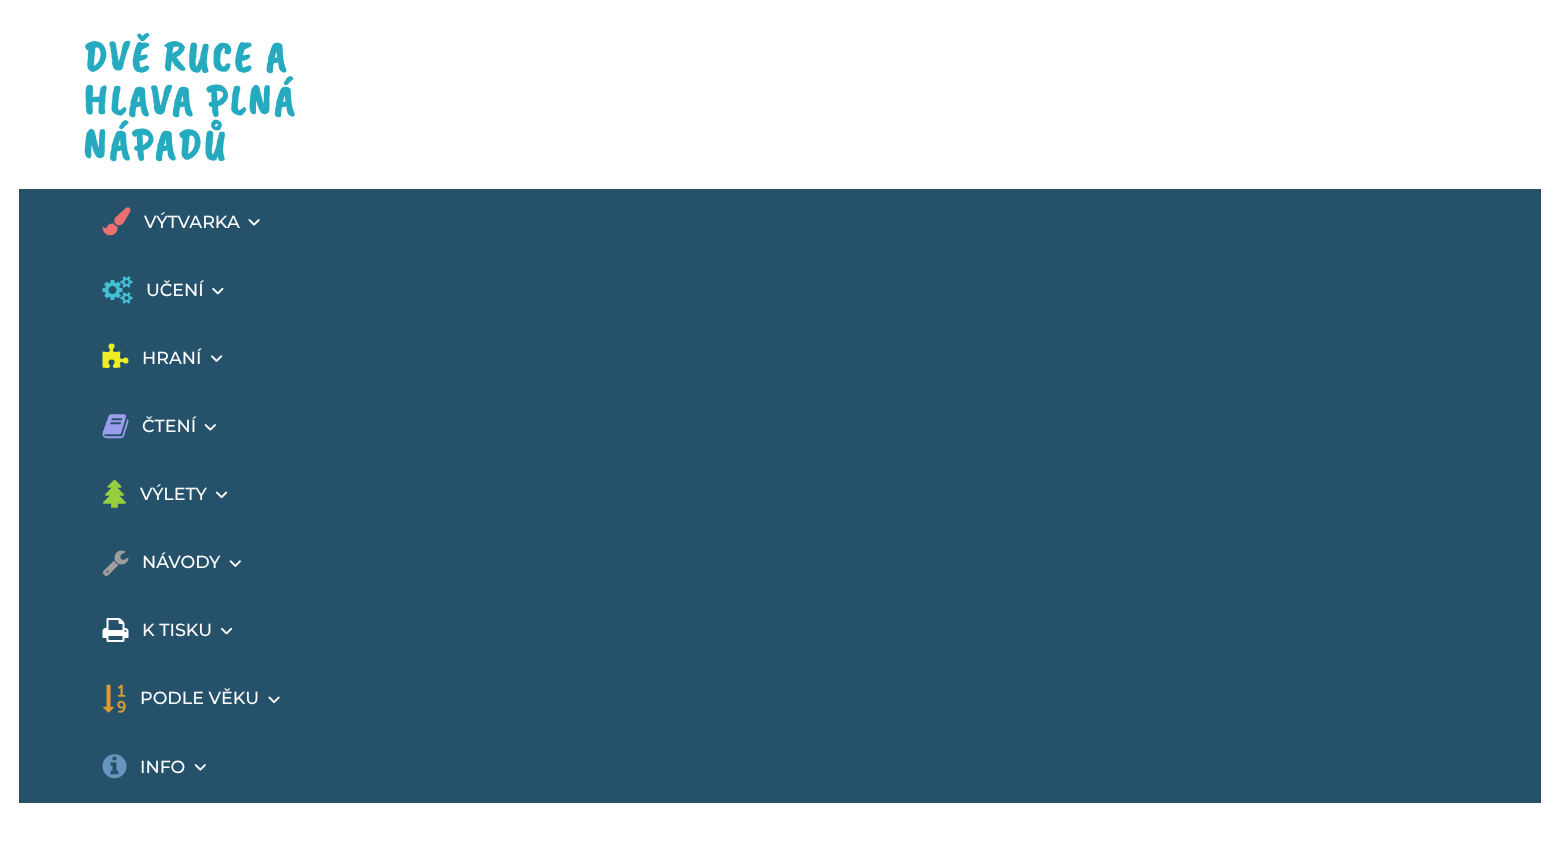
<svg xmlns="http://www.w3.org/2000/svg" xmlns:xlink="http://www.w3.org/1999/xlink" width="1559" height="843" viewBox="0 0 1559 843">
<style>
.cls-1{font:bold 43.75px Caveat Brush;letter-spacing:2.5px;fill:#26aabf}
.cls-2{font:500 17.5px Montserrat;fill:#ffffff}
</style>
<rect width="100%" height="100%" fill="#ffffff"/>
<rect fill="#26516b" x="19" y="189" width="1522" height="614"/>
<image xlink:href="image0.png" x="102" y="207" width="29" height="29"/>
<image xlink:href="image1.png" x="248" y="219" width="12" height="7"/>
<image xlink:href="image2.png" x="102" y="276" width="31" height="28"/>
<image xlink:href="image3.png" x="212" y="287" width="12" height="8"/>
<image xlink:href="image4.png" x="102" y="343" width="27" height="26"/>
<image xlink:href="image5.png" x="211" y="355" width="12" height="7"/>
<image xlink:href="image6.png" x="102" y="414" width="27" height="25"/>
<image xlink:href="image7.png" x="204" y="424" width="12" height="7"/>
<image xlink:href="image8.png" x="103" y="479" width="23" height="29"/>
<image xlink:href="image9.png" x="216" y="491" width="12" height="8"/>
<image xlink:href="image10.png" x="102" y="550" width="27" height="27"/>
<image xlink:href="image11.png" x="229" y="560" width="12" height="7"/>
<image xlink:href="image12.png" x="102" y="618" width="27" height="24"/>
<image xlink:href="image13.png" x="221" y="627" width="12" height="8"/>
<image xlink:href="image14.png" x="103" y="684" width="23" height="29"/>
<image xlink:href="image15.png" x="268" y="696" width="12" height="8"/>
<image xlink:href="image16.png" x="102" y="754" width="25" height="25"/>
<image xlink:href="image7.png" x="194" y="764" width="12" height="7"/>
<text class="cls-1"><tspan x="83" y="71">DVĚ RUCE A</tspan><tspan x="83" y="115">HLAVA PLNÁ</tspan><tspan x="83" y="159">NÁPADŮ</tspan></text>
<text class="cls-2" x="144" y="228">VÝTVARKA</text>
<text class="cls-2" x="146" y="296">UČENÍ</text>
<text class="cls-2" x="142" y="364">HRANÍ</text>
<text class="cls-2" x="142" y="432">ČTENÍ</text>
<text class="cls-2" x="140" y="500">VÝLETY</text>
<text class="cls-2" x="142" y="568">NÁVODY</text>
<text class="cls-2" x="142" y="636">K TISKU</text>
<text class="cls-2" x="140" y="704">PODLE VĚKU</text>
<text class="cls-2" x="140" y="773">INFO</text>
</svg>
